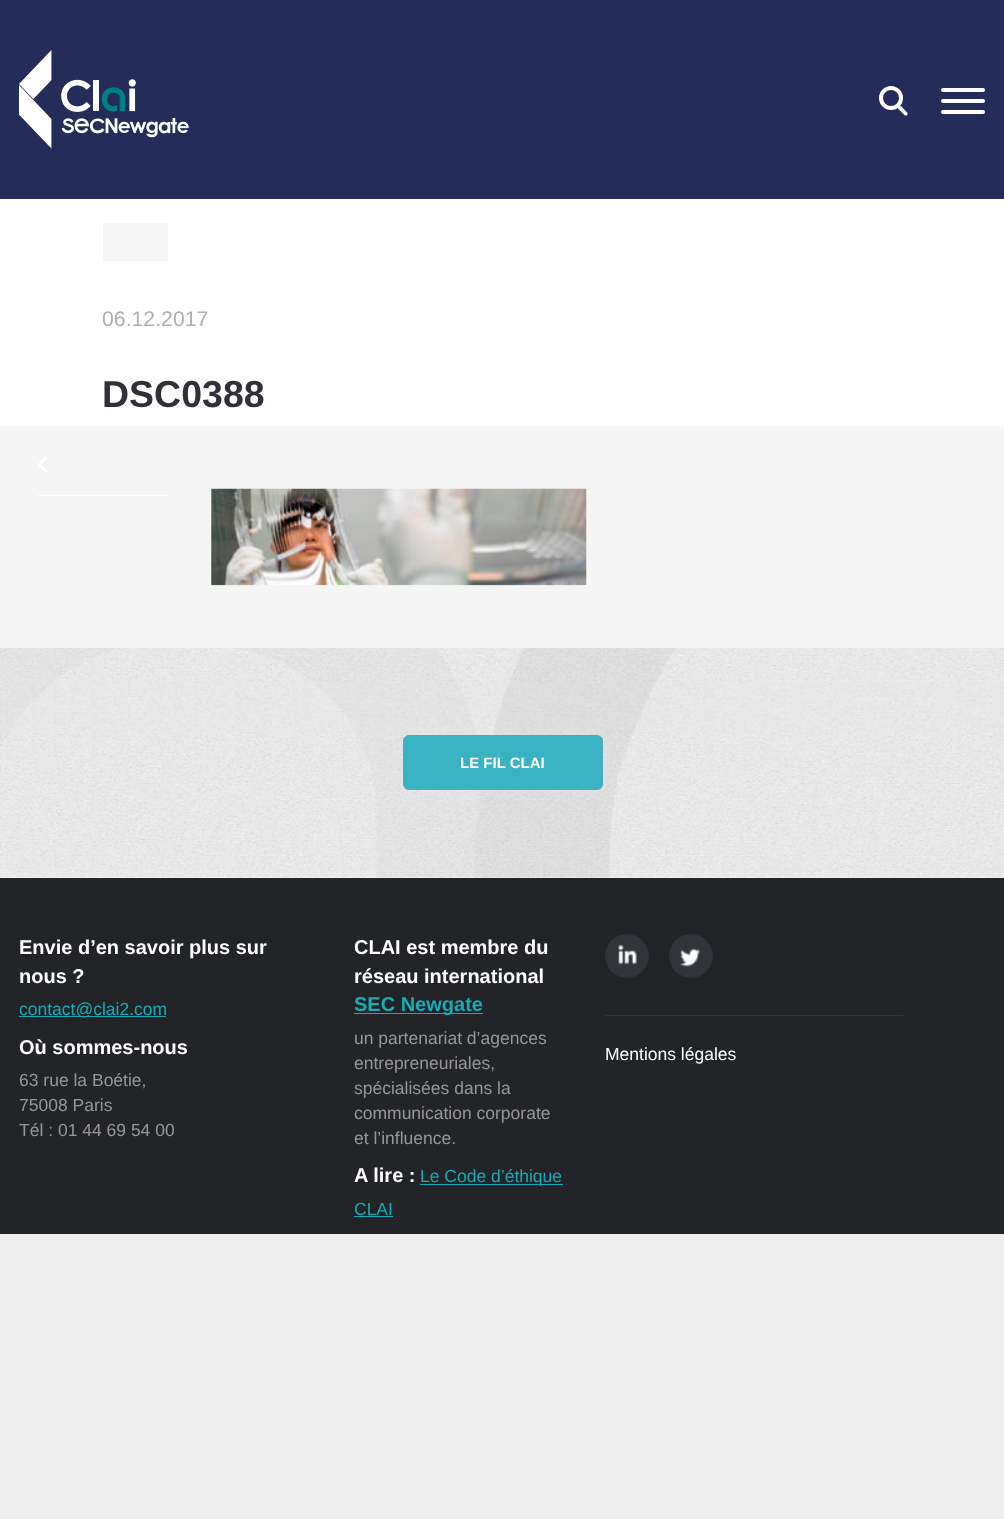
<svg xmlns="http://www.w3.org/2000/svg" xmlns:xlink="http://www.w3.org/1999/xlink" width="1004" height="1519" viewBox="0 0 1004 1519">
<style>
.cls-1{font:21.25px Liberation Sans;fill:#b0b0b0}
.cls-2{font:bold 37.5px Liberation Sans;fill:#31303a}
.cls-3{font:bold 15px Liberation Sans;fill:#ffffff}
.cls-4{font:bold 20px Liberation Sans;fill:#ffffff}
.cls-5{font:17.5px Liberation Sans;fill:#16acb7}
.cls-6{font:17.5px Liberation Sans;fill:#979797}
.cls-7{font:bold 20px Liberation Sans;fill:#16acb7}
.cls-8{font:17.5px Liberation Sans;fill:#ffffff}
</style>
<rect width="100%" height="100%" fill="#eeeeee"/>
<rect fill="#242c59" x="0" y="0" width="1004" height="199"/>
<image xlink:href="image0.png" x="19" y="50" width="170" height="99"/>
<circle fill="none" stroke="#ffffff" stroke-width="4" cx="891" cy="98" r="10"/>
<path fill="#ffffff" d="M901 106L907.5 113C908 115 906 116.5 904.5 115L898 108.5C897 106.5 899.5 104.5 901 106Z"/>
<rect fill="#ffffff" x="941" y="99" width="44" height="4" rx="2"/>
<rect fill="#ffffff" x="941" y="88" width="44" height="4" rx="2"/>
<rect fill="#ffffff" x="941" y="110" width="44" height="4" rx="2"/>
<rect fill="#f5f5f5" x="0" y="426" width="1004" height="452"/>
<rect fill="#ffffff" x="0" y="199" width="1004" height="227"/>
<rect fill="#f6f6f6" x="103" y="223" width="65" height="38"/>
<rect fill="#ffffff" x="38" y="495" width="130" height="1"/>
<path fill="#ffffff" d="M46 473L38 465L39.5 463L47.5 471Z"/>
<path fill="#ffffff" d="M39.5 466L38 464L46 456L47.5 458Z"/>
<image xlink:href="image1.png" x="211" y="488" width="376" height="98"/>
<image xlink:href="image2.png" x="0" y="648" width="1004" height="230"/>
<rect fill="#39b2c3" stroke="#54a8b3" x="403.5" y="735.5" width="199" height="54" rx="5.5"/>
<rect fill="#222427" x="0" y="878" width="1004" height="356"/>
<rect fill="#16acb7" x="19" y="1016" width="147" height="1"/>
<rect fill="#16acb7" x="354" y="1013" width="129" height="1"/>
<rect fill="#16acb7" x="420" y="1184" width="143" height="1"/>
<rect fill="#16acb7" x="354" y="1216" width="39" height="1"/>
<circle fill="#313438" cx="627" cy="956" r="22"/>
<image xlink:href="image3.png" x="618" y="944" width="19" height="21"/>
<circle fill="#313438" cx="691" cy="956" r="22"/>
<image xlink:href="image4.png" x="680" y="948" width="21" height="19"/>
<rect fill="#2f3236" x="605" y="1015" width="298" height="1"/>
<text class="cls-1" x="102" y="326">06.12.2017</text>
<text class="cls-2" x="102" y="407">DSC0388</text>
<text class="cls-3" x="460" y="768">LE FIL CLAI</text>
<text class="cls-4"><tspan x="19" y="954">Envie d’en savoir plus sur</tspan><tspan x="19" y="983">nous ?</tspan></text>
<text class="cls-5" x="19" y="1015">contact@clai2.com</text>
<text class="cls-4" x="19" y="1054">Où sommes-nous</text>
<text class="cls-6"><tspan x="19" y="1086">63 rue la Boétie,</tspan><tspan x="19" y="1111">75008 Paris</tspan><tspan x="19" y="1136">Tél : 01 44 69 54 00</tspan></text>
<text class="cls-4"><tspan x="354" y="954">CLAI est membre du</tspan><tspan x="354" y="983">réseau international</tspan></text>
<text class="cls-7" x="354" y="1011">SEC Newgate</text>
<text class="cls-6"><tspan x="354" y="1044">un partenariat d’agences</tspan><tspan x="354" y="1069">entrepreneuriales,</tspan><tspan x="354" y="1094">spécialisées dans la</tspan><tspan x="354" y="1119">communication corporate</tspan><tspan x="354" y="1144">et l’influence.</tspan></text>
<text class="cls-4" x="354" y="1182">A lire :</text>
<text class="cls-5" x="420" y="1182">Le Code d’éthique</text>
<text class="cls-5" x="354" y="1215">CLAI</text>
<text class="cls-8" x="605" y="1060">Mentions légales</text>
</svg>
